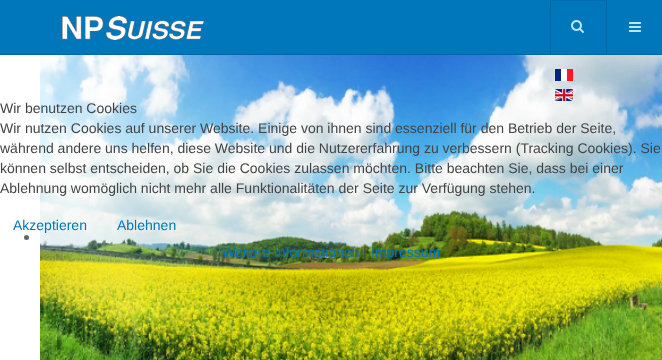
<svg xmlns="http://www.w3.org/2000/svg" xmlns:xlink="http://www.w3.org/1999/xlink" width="662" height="360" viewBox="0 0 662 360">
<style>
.cls-1{font:14px Liberation Sans;fill:#444444}
.cls-2{font:14px Liberation Sans;fill:#0077bb}
</style>
<rect width="100%" height="100%" fill="#ffffff"/>
<rect fill="#0077bb" x="0" y="0" width="662" height="54"/>
<rect fill="#0067a2" x="0" y="54" width="662" height="1"/>
<image xlink:href="image0.png" x="62" y="16" width="142" height="24"/>
<rect fill="#0067a2" x="606" y="0" width="1" height="54"/>
<rect fill="#0067a2" x="550" y="0" width="1" height="54"/>
<rect fill="#006ead" x="551" y="0" width="55" height="1"/>
<image xlink:href="image1.png" x="571" y="20" width="13" height="13"/>
<image xlink:href="image5.png" x="40" y="55" width="622" height="305"/>
<image xlink:href="image2.png" x="555" y="69" width="18" height="12"/>
<image xlink:href="image3.png" x="555" y="89" width="18" height="12"/>
<image xlink:href="image4.png" x="629" y="22" width="12" height="10"/>
<circle fill="#666666" cx="26.5" cy="237.5" r="2.5"/>
<text class="cls-1"><tspan x="0" y="113">Wir benutzen Cookies</tspan><tspan x="0" y="133">Wir nutzen Cookies auf unserer Website. Einige von ihnen sind essenziell für den Betrieb der Seite,</tspan><tspan x="0" y="153">während andere uns helfen, diese Website und die Nutzererfahrung zu verbessern (Tracking Cookies). Sie</tspan><tspan x="0" y="173">können selbst entscheiden, ob Sie die Cookies zulassen möchten. Bitte beachten Sie, dass bei einer</tspan><tspan x="0" y="193">Ablehnung womöglich nicht mehr alle Funktionalitäten der Seite zur Verfügung stehen.</tspan></text>
<text class="cls-2" x="13" y="230">Akzeptieren</text>
<text class="cls-2" x="117" y="230">Ablehnen</text>
<text class="cls-2" x="222" y="257">Weitere Informationen</text>
<text class="cls-1" x="363" y="257">|</text>
<text class="cls-2" x="371" y="257">Impressum</text>
</svg>
